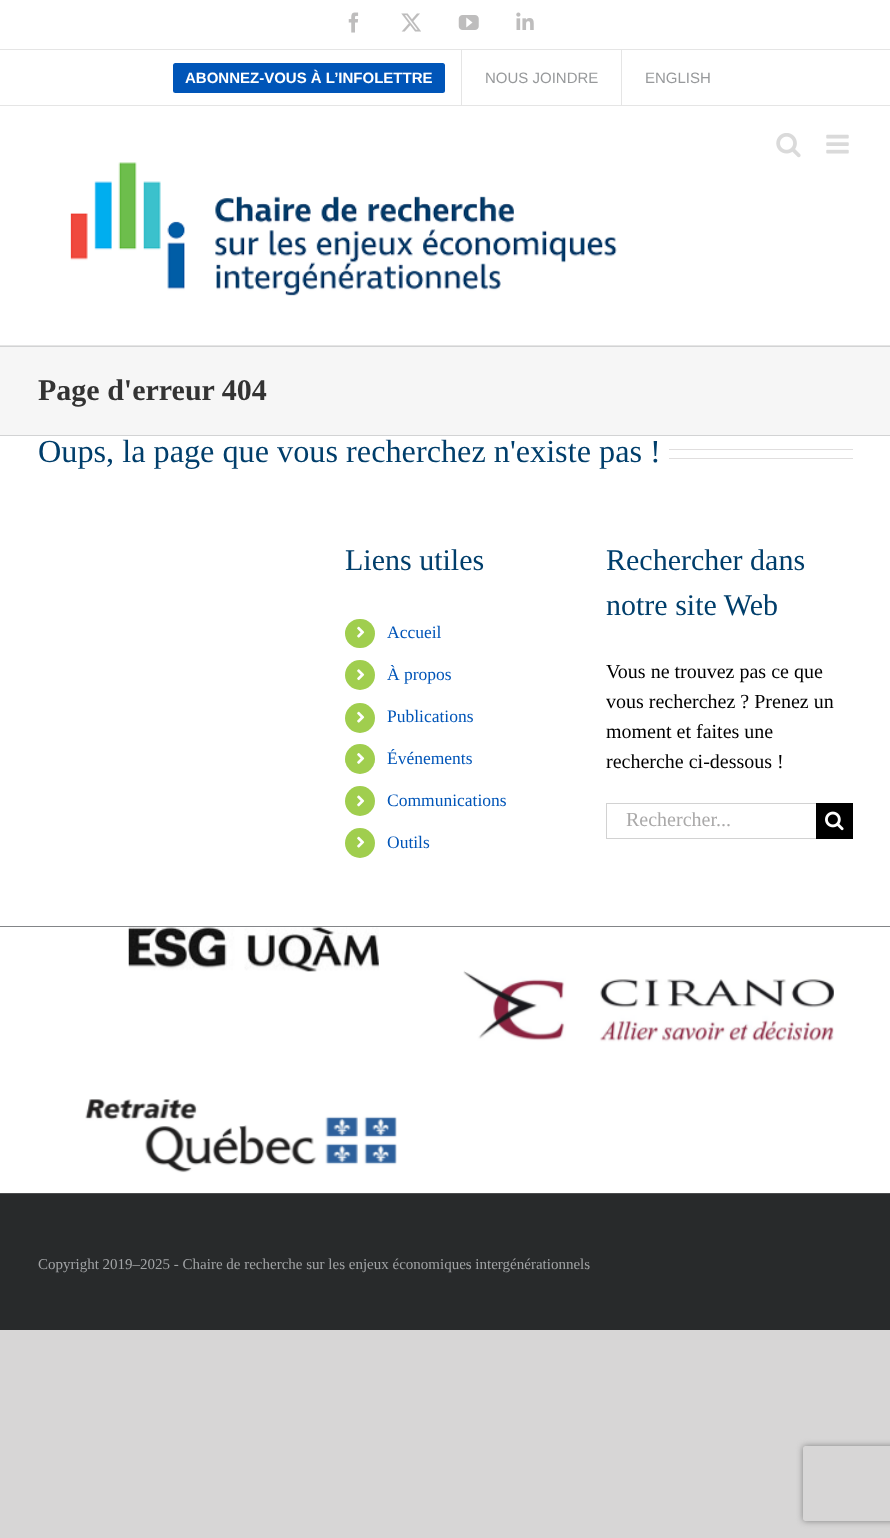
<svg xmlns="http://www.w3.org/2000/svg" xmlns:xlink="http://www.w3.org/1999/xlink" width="890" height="1538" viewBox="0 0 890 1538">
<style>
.cls-1{font:bold 15px Liberation Sans;fill:#ffffff}
.cls-2{font:15px Liberation Sans;fill:#97999b}
.cls-3{font:bold 30px Liberation Serif;fill:#333333}
.cls-4{font:32.25px Liberation Serif;fill:#003e6b}
.cls-5{font:30px Liberation Serif;fill:#003e6b}
.cls-6{font:17.5px Liberation Serif;fill:#0055b8}
.cls-7{font:20px Liberation Serif;fill:#000000}
.cls-8{font:20px Liberation Serif;fill:#aaa9a9}
.cls-9{font:15px Liberation Serif;fill:#a1a3a5}
</style>
<defs>
<clipPath id="clip1"><path d="M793 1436H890V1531H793ZM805.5 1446H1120.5C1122 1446 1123 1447 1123 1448.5V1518.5C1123 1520 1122 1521 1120.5 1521H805.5C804 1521 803 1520 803 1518.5V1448.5C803 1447 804 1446 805.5 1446Z" clip-rule="evenodd"/></clipPath>
</defs>
<rect width="100%" height="100%" fill="#d7d6d6"/>
<rect fill="#ffffff" x="0" y="0" width="890" height="1193"/>
<rect fill="#e5e5e5" x="0" y="105" width="890" height="1"/>
<rect fill="#e5e5e5" x="0" y="49" width="890" height="1"/>
<image xlink:href="image0.png" x="348" y="12" width="11" height="21"/>
<image xlink:href="image1.png" x="401" y="13" width="20" height="19"/>
<image xlink:href="image2.png" x="458" y="15" width="21" height="15"/>
<image xlink:href="image3.png" x="516" y="12" width="18" height="18"/>
<rect fill="#0055b8" x="173" y="63" width="272" height="30" rx="2.5"/>
<rect fill="#e5e5e5" x="461" y="50" width="1" height="55"/>
<rect fill="#e5e5e5" x="621" y="50" width="1" height="55"/>
<rect fill="#e5e5e5" x="0" y="345" width="890" height="1"/>
<image xlink:href="image4.png" x="776" y="133" width="25" height="25"/>
<image xlink:href="image5.png" x="826" y="134" width="23" height="20"/>
<image xlink:href="image6.png" x="70" y="162" width="547" height="134"/>
<rect fill="#f6f6f6" x="0" y="347" width="890" height="88"/>
<rect fill="#d2d3d4" x="0" y="346" width="890" height="1"/>
<rect fill="#d2d3d4" x="0" y="435" width="890" height="1"/>
<rect fill="#e0dede" x="669" y="449" width="184" height="1"/>
<rect fill="#e0dede" x="669" y="458" width="184" height="1"/>
<rect fill="#a0ce4e" x="345" y="619" width="30" height="29" rx="14.5"/>
<image xlink:href="image7.png" x="357" y="626" width="8" height="12"/>
<circle fill="#a0ce4e" cx="360" cy="675" r="15"/>
<image xlink:href="image8.png" x="357" y="669" width="8" height="12"/>
<circle fill="#a0ce4e" cx="360" cy="718" r="15"/>
<image xlink:href="image7.png" x="357" y="711" width="8" height="12"/>
<circle fill="#a0ce4e" cx="360" cy="759" r="15"/>
<image xlink:href="image9.png" x="357" y="753" width="8" height="11"/>
<circle fill="#a0ce4e" cx="360" cy="801" r="15"/>
<image xlink:href="image10.png" x="357" y="795" width="8" height="12"/>
<circle fill="#a0ce4e" cx="360" cy="843" r="15"/>
<image xlink:href="image7.png" x="357" y="836" width="8" height="12"/>
<rect fill="#d2d2d2" x="606" y="803" width="210" height="1"/>
<rect fill="#d2d2d2" x="606" y="838" width="210" height="1"/>
<rect fill="#d2d2d2" x="606" y="803" width="1" height="36"/>
<rect fill="#000000" x="816" y="803" width="37" height="36"/>
<image xlink:href="image11.png" x="825" y="811" width="19" height="20"/>
<rect fill="#838588" x="0" y="926" width="890" height="1"/>
<image xlink:href="image12.png" x="128" y="927" width="251" height="45"/>
<image xlink:href="image13.png" x="463" y="970" width="371" height="72"/>
<image xlink:href="image14.png" x="85" y="1099" width="312" height="74"/>
<rect fill="#282a2b" x="0" y="1194" width="890" height="136"/>
<rect fill="#4b4c4d" x="0" y="1193" width="890" height="1"/>
<g clip-path="url(#clip1)">
<rect fill="#808080" filter="blur(3px)" x="803" y="1446" width="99" height="75" rx="2.5"/>
</g>
<text class="cls-1" x="185" y="83">ABONNEZ-VOUS À L’INFOLETTRE</text>
<text class="cls-2" x="485" y="83">NOUS JOINDRE</text>
<text class="cls-2" x="645" y="83">ENGLISH</text>
<text class="cls-3" x="38" y="400">Page d'erreur 404</text>
<text class="cls-4" x="38" y="462">Oups, la page que vous recherchez n'existe pas !</text>
<text class="cls-5" x="345" y="570">Liens utiles</text>
<text class="cls-6" x="387" y="638">Accueil</text>
<text class="cls-6" x="387" y="680">À propos</text>
<text class="cls-6" x="387" y="722">Publications</text>
<text class="cls-6" x="387" y="764">Événements</text>
<text class="cls-6" x="387" y="806">Communications</text>
<text class="cls-6" x="387" y="848">Outils</text>
<text class="cls-5"><tspan x="606" y="570">Rechercher dans</tspan><tspan x="606" y="615">notre site Web</tspan></text>
<text class="cls-7"><tspan x="606" y="678">Vous ne trouvez pas ce que</tspan><tspan x="606" y="708">vous recherchez ? Prenez un</tspan><tspan x="606" y="738">moment et faites une</tspan><tspan x="606" y="768">recherche ci-dessous !</tspan></text>
<text class="cls-8" x="626" y="826">Rechercher...</text>
<text class="cls-9" x="38" y="1269">Copyright 2019–2025 - Chaire de recherche sur les enjeux économiques intergénérationnels</text>
</svg>
